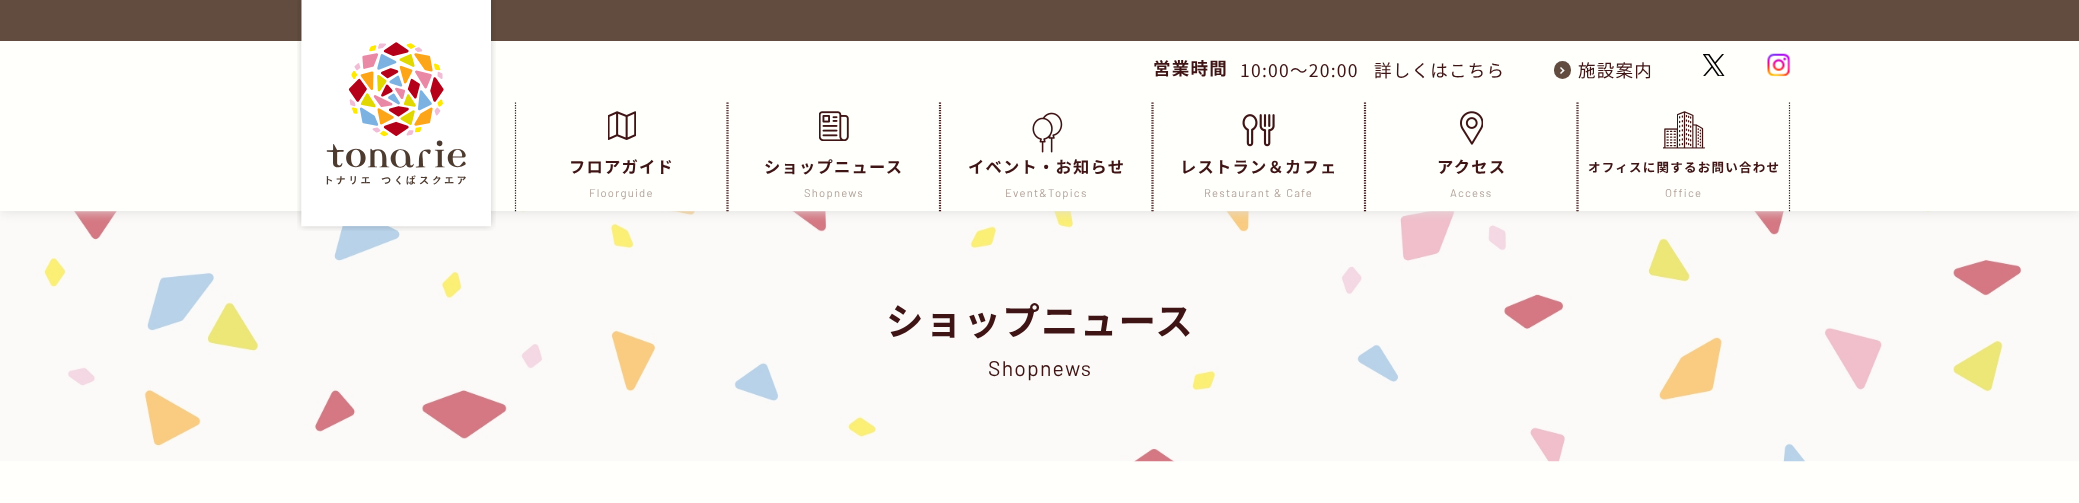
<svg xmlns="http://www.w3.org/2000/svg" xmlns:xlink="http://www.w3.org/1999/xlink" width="2079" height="503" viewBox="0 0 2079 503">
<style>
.cls-1{font:bold 17.5px Noto Sans JP;letter-spacing:1.25px;fill:#3e1414}
.cls-2{font:17.5px Noto Sans JP;letter-spacing:1.25px;fill:#3e1414}
.cls-3{font:bold 16.25px Noto Sans JP;letter-spacing:1.25px;fill:#3e1414}
.cls-4{font:11.25px Barlow;letter-spacing:1.25px;fill:#b1a298}
.cls-5{font:bold 12.5px Noto Sans JP;letter-spacing:1.25px;fill:#3e1414}
.cls-6{font:bold 37.5px Noto Sans JP;letter-spacing:1.25px;fill:#3e1414}
.cls-7{font:21.25px Barlow;letter-spacing:1.25px;fill:#3e1414}
</style>
<defs>
<clipPath id="clip1"><rect x="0" y="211" width="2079" height="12"/></clipPath>
</defs>
<rect width="100%" height="100%" fill="#fffffc"/>
<image xlink:href="image9.png" x="0" y="211" width="2079" height="251"/>
<g clip-path="url(#clip1)">
<rect fill="#dedede" filter="blur(6px)" x="0" y="0" width="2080" height="211"/>
</g>
<rect fill="#624c3f" x="0" y="0" width="2079" height="41"/>
<image xlink:href="image0.png" x="297" y="0" width="199" height="231"/>
<rect fill="#624c3f" x="1554" y="61" width="17" height="18" rx="8.5"/>
<path fill="#ffffff" d="M1560 68L1561 67L1564.5 70.5L1563.5 71.5Z"/>
<path fill="#ffffff" d="M1560 73L1563.5 69.5L1564.5 70.5L1561 74Z"/>
<image xlink:href="image1.png" x="1703" y="54" width="22" height="22"/>
<image xlink:href="image2.png" x="1767" y="53" width="24" height="24"/>
<path fill="none" stroke="#3e1414" stroke-width="1.2" stroke-dasharray="1.25 1.25" d="M727 102.5V212.5"/>
<path fill="none" stroke="#3e1414" stroke-width="1.2" stroke-dasharray="1.25 1.25" d="M515.5 102.5V212.5"/>
<image xlink:href="image3.png" x="608" y="111" width="28" height="29"/>
<path fill="none" stroke="#3e1414" stroke-width="1.2" stroke-dasharray="1.25 1.25" d="M939.5 102.5V212.5"/>
<path fill="none" stroke="#3e1414" stroke-width="1.2" stroke-dasharray="1.25 1.25" d="M728 102.5V212.5"/>
<image xlink:href="image4.png" x="819" y="111" width="30" height="30"/>
<path fill="none" stroke="#3e1414" stroke-width="1.2" stroke-dasharray="1.25 1.25" d="M1152 102.5V212.5"/>
<path fill="none" stroke="#3e1414" stroke-width="1.2" stroke-dasharray="1.25 1.25" d="M940.5 102.5V212.5"/>
<image xlink:href="image5.png" x="1032" y="112" width="31" height="41"/>
<path fill="none" stroke="#3e1414" stroke-width="1.2" stroke-dasharray="1.25 1.25" d="M1364.5 102.5V212.5"/>
<path fill="none" stroke="#3e1414" stroke-width="1.2" stroke-dasharray="1.25 1.25" d="M1153 102.5V212.5"/>
<image xlink:href="image6.png" x="1242" y="114" width="33" height="33"/>
<path fill="none" stroke="#3e1414" stroke-width="1.2" stroke-dasharray="1.25 1.25" d="M1577 102.5V212.5"/>
<path fill="none" stroke="#3e1414" stroke-width="1.2" stroke-dasharray="1.25 1.25" d="M1365.5 102.5V212.5"/>
<image xlink:href="image7.png" x="1460" y="111" width="23" height="34"/>
<path fill="none" stroke="#3e1414" stroke-width="1.2" stroke-dasharray="1.25 1.25" d="M1789.5 102.5V212.5"/>
<path fill="none" stroke="#3e1414" stroke-width="1.2" stroke-dasharray="1.25 1.25" d="M1578 102.5V212.5"/>
<image xlink:href="image8.png" x="1663" y="111" width="42" height="38"/>
<text class="cls-1" x="1153" y="75">営業時間</text>
<text class="cls-2" x="1240" y="77">10:00～20:00</text>
<text class="cls-2" x="1374" y="77">詳しくはこちら</text>
<text class="cls-2" x="1578" y="77">施設案内</text>
<text class="cls-3" x="569" y="173">フロアガイド</text>
<text class="cls-4" x="589" y="197">Floorguide</text>
<text class="cls-3" x="764" y="173">ショップニュース</text>
<text class="cls-4" x="804" y="197">Shopnews</text>
<text class="cls-3" x="968" y="173">イベント・お知らせ</text>
<text class="cls-4" x="1005" y="197">Event&amp;Topics</text>
<text class="cls-3" x="1180" y="173">レストラン＆カフェ</text>
<text class="cls-4" x="1204" y="197">Restaurant &amp; Cafe</text>
<text class="cls-3" x="1437" y="173">アクセス</text>
<text class="cls-4" x="1450" y="197">Access</text>
<text class="cls-5" x="1588" y="172">オフィスに関するお問い合わせ</text>
<text class="cls-4" x="1665" y="197">Office</text>
<text class="cls-6" x="886" y="335">ショップニュース</text>
<text class="cls-7" x="988" y="376">Shopnews</text>
</svg>
